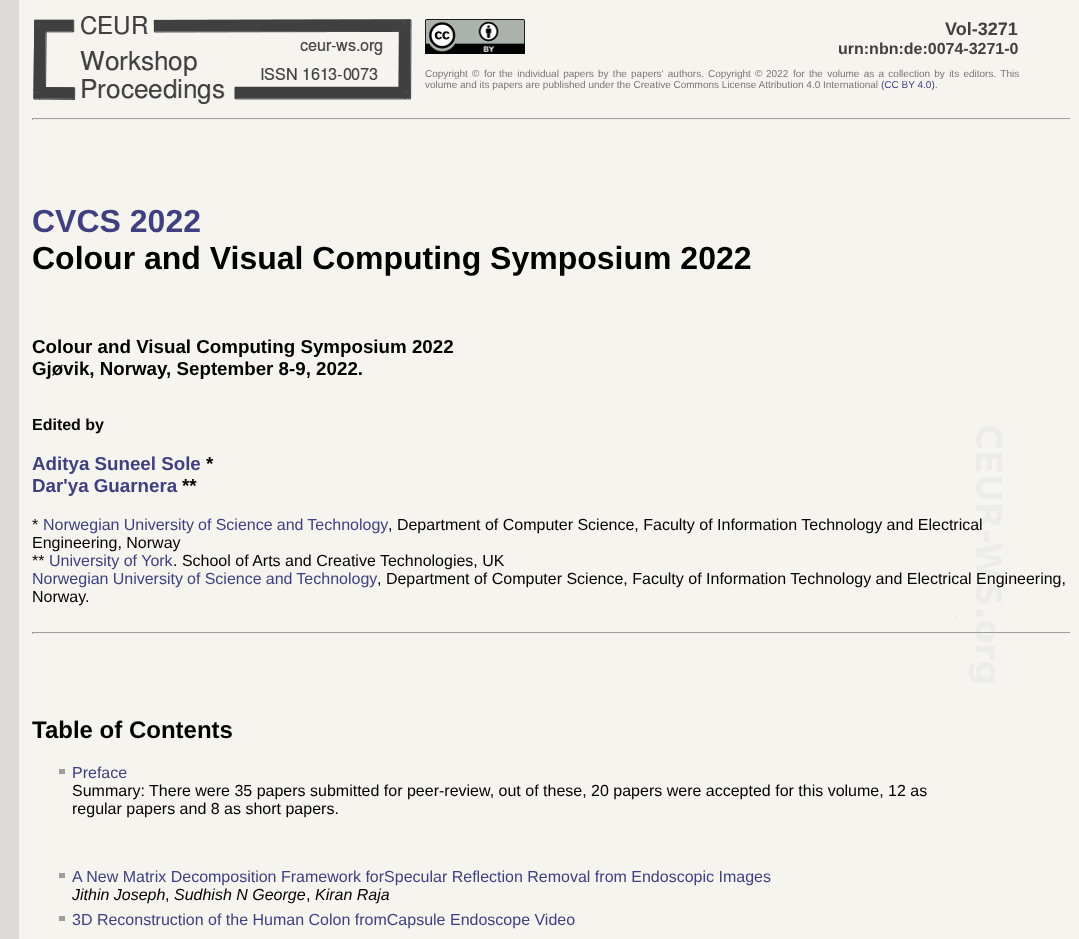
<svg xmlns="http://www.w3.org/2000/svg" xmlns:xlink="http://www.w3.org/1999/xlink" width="1079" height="939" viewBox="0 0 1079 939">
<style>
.cls-1{font:bold 18px Liberation Sans;fill:#404040}
.cls-2{font:bold 16px Liberation Sans;fill:#404040}
.cls-3{font:10px Liberation Sans;fill:#777777}
.cls-4{font:10px Liberation Sans;fill:#404080}
.cls-5{font:bold 32px Liberation Sans;fill:#404080}
.cls-6{font:bold 32px Liberation Sans;fill:#000000}
.cls-7{font:bold 18.75px Liberation Sans;fill:#000000}
.cls-8{font:bold 16px Liberation Sans;fill:#000000}
.cls-9{font:bold 18.75px Liberation Sans;fill:#404080}
.cls-10{font:16px Liberation Sans;fill:#000000}
.cls-11{font:16px Liberation Sans;fill:#404080}
.cls-12{font:bold 24px Liberation Sans;fill:#000000}
.cls-13{font:italic 16px Liberation Sans;fill:#000000}
</style>
<rect width="100%" height="100%" fill="#ffffff"/>
<image xlink:href="image0.png" x="0" y="0" width="1079" height="939"/>
<image xlink:href="image1.png" x="33" y="16" width="379" height="88"/>
<image xlink:href="image2.png" x="425" y="19" width="100" height="35"/>
<rect fill="#9f9f9f" x="32" y="118" width="1039" height="1"/>
<rect fill="#eeeeee" x="1070" y="118" width="1" height="2"/>
<rect fill="#eeeeee" x="32" y="119" width="1039" height="1"/>
<rect fill="#9f9f9f" x="32" y="118" width="1" height="2"/>
<rect fill="#9f9f9f" x="32" y="632" width="1039" height="1"/>
<rect fill="#eeeeee" x="1070" y="632" width="1" height="2"/>
<rect fill="#eeeeee" x="32" y="633" width="1039" height="1"/>
<rect fill="#9f9f9f" x="32" y="632" width="1" height="2"/>
<rect fill="#9e9e9b" x="59" y="769" width="6" height="5"/>
<rect fill="#9e9e9b" x="59" y="873" width="6" height="5"/>
<rect fill="#9e9e9b" x="59" y="916" width="6" height="5"/>
<text class="cls-1" x="945" y="35">Vol-3271</text>
<text class="cls-2" x="838" y="54">urn:nbn:de:0074-3271-0</text>
<text class="cls-3" x="425" y="77" word-spacing="1.5">Copyright ©</text>
<text class="cls-3" x="484" y="77">for</text>
<text class="cls-3" x="499" y="77" word-spacing="1.5">the individual papers by the papers' authors.</text>
<text class="cls-3" x="708" y="77" word-spacing="1.5">Copyright ©</text>
<text class="cls-3" x="766" y="77">2022</text>
<text class="cls-3" x="793" y="77" word-spacing="1.5">for the volume as a collection by its editors. This</text>
<text class="cls-3" x="425" y="88">volume and its papers are published under the Creative Commons License Attribution 4.0 International</text>
<text class="cls-4" x="881" y="88">(CC BY 4.0)</text>
<text class="cls-3" x="935" y="88">.</text>
<text class="cls-5" x="32" y="232">CVCS 2022</text>
<text class="cls-6" x="32" y="269">Colour and Visual Computing Symposium 2022</text>
<text class="cls-7"><tspan x="32" y="353">Colour and Visual Computing Symposium 2022</tspan><tspan x="32" y="375">Gjøvik, Norway, September 8-9, 2022.</tspan></text>
<text class="cls-8" x="32" y="430">Edited by</text>
<text class="cls-9" x="32" y="470">Aditya Suneel Sole</text>
<text class="cls-7" x="206" y="470">*</text>
<text class="cls-9" x="32" y="492">Dar'ya Guarnera</text>
<text class="cls-7" x="182" y="492">**</text>
<text class="cls-10" x="32" y="530">*</text>
<text class="cls-11" x="43" y="530" word-spacing="-0.25">Norwegian University of Science and Technology</text>
<text class="cls-10" x="388" y="530">, Department of Computer Science, Faculty of Information Technology and Electrical</text>
<text class="cls-10"><tspan x="32" y="548">Engineering, Norway</tspan><tspan x="32" y="566">**</tspan></text>
<text class="cls-11" x="49" y="566">University of York</text>
<text class="cls-10" x="173" y="566">. School of Arts and Creative Technologies, UK</text>
<text class="cls-11" x="32" y="584" word-spacing="-0.25">Norwegian University of Science and Technology</text>
<text class="cls-10" x="377" y="584">, Department of Computer Science, Faculty of Information Technology and Electrical Engineering,</text>
<text class="cls-10" x="32" y="602">Norway.</text>
<text class="cls-12" x="32" y="738">Table of Contents</text>
<text class="cls-11" x="72" y="778">Preface</text>
<text class="cls-10"><tspan x="72" y="796">Summary: There were 35 papers submitted for peer-review, out of these, 20 papers were accepted for this volume, 12 as</tspan><tspan x="72" y="814">regular papers and 8 as short papers.</tspan></text>
<text class="cls-11" x="72" y="882">A New Matrix Decomposition Framework forSpecular Reflection Removal from Endoscopic Images</text>
<text class="cls-13" x="72" y="900">Jithin Joseph</text>
<text class="cls-10" x="165" y="900">,</text>
<text class="cls-13" x="174" y="900">Sudhish N George</text>
<text class="cls-10" x="306" y="900">,</text>
<text class="cls-13" x="315" y="900">Kiran Raja</text>
<text class="cls-11" x="72" y="925">3D Reconstruction of the Human Colon fromCapsule Endoscope Video</text>
</svg>
